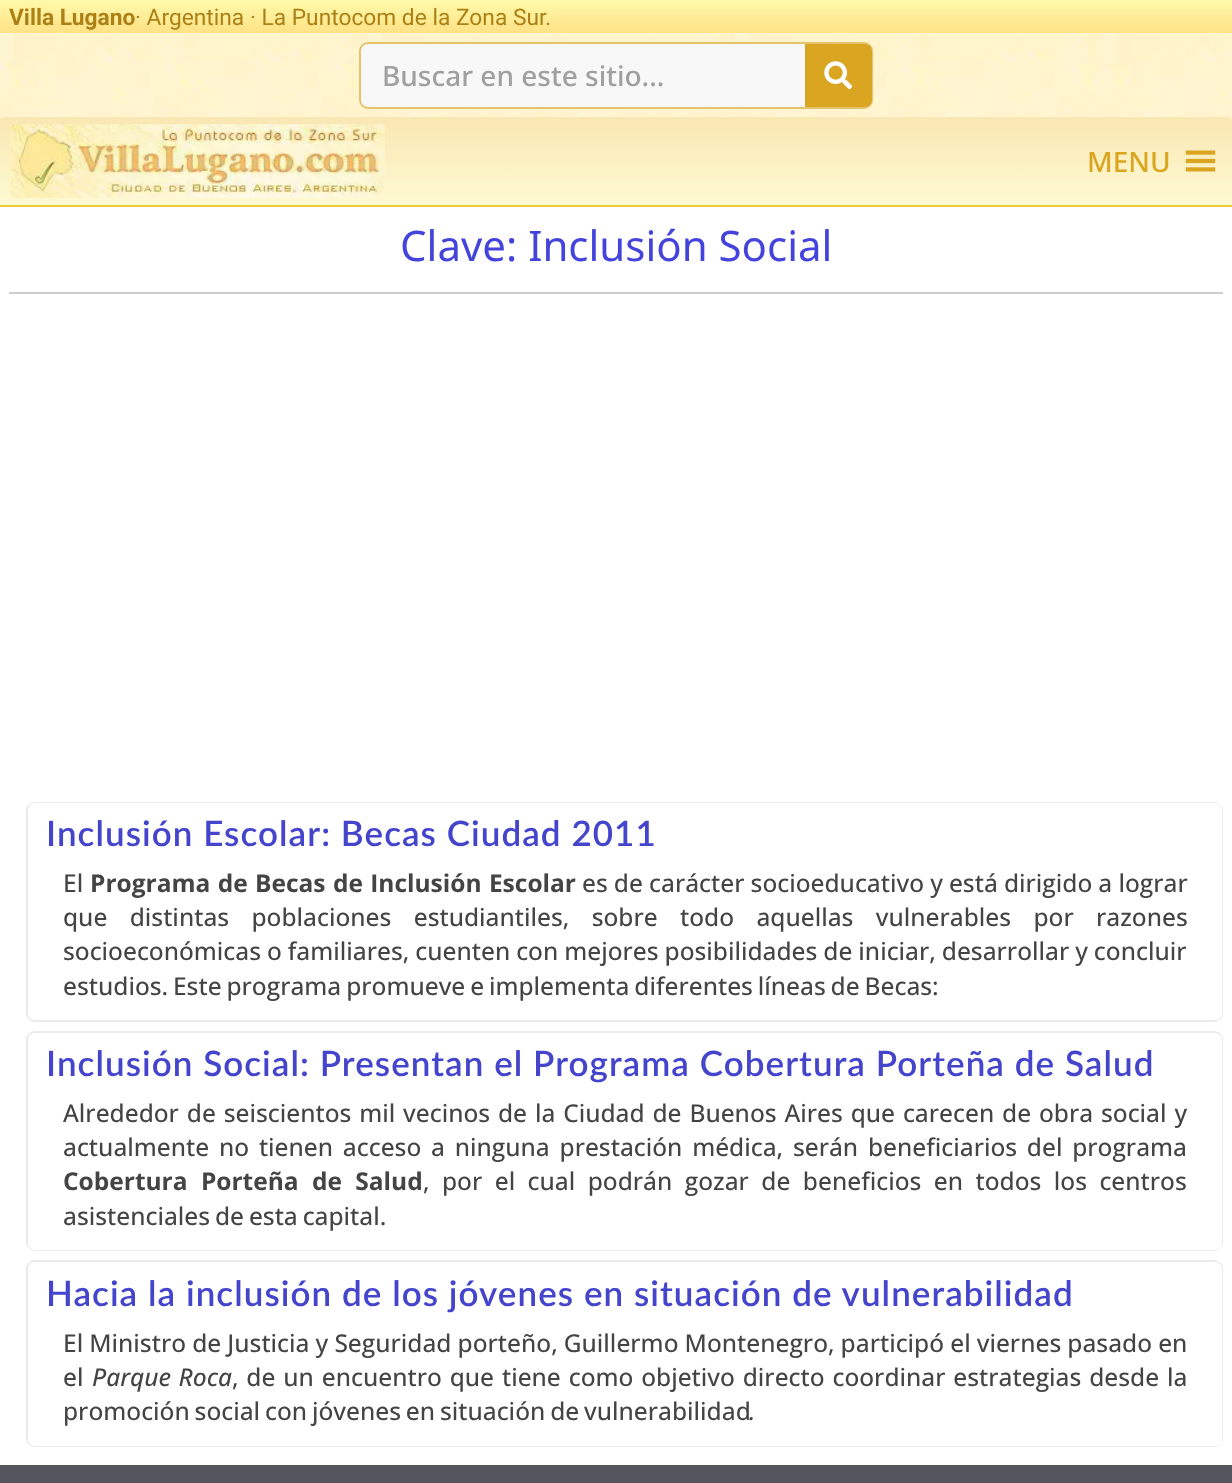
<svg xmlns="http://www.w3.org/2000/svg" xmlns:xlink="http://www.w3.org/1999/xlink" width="1232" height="1483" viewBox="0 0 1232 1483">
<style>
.cls-1{font:bold 22.75px Roboto;fill:#ab8016}
.cls-2{font:22.75px Roboto;fill:#ab8016}
.cls-3{font:500 28px Noto Sans;fill:#a0a0a0}
.cls-4{font:500 28px Noto Sans;fill:#daa520}
.cls-5{font:42px Noto Sans;fill:#4444dd}
.cls-6{font:600 35px Lato;letter-spacing:1.05px;fill:#4444cc}
.cls-7{font:500 24.5px Open Sans;fill:#444444}
.cls-8{font:bold 24.5px Open Sans;fill:#444444}
.cls-9{font:italic 500 24.5px Open Sans;fill:#444444}
</style>
<defs>
<linearGradient id="g1" gradientUnits="userSpaceOnUse" x1="616" y1="0" x2="616" y2="33"><stop offset="0" stop-color="#fffaab"/><stop offset="1" stop-color="#ffe184"/></linearGradient>
<linearGradient id="g2" gradientUnits="userSpaceOnUse" x1="616" y1="117" x2="616" y2="205"><stop offset="0" stop-color="#f9e7b3"/><stop offset="1" stop-color="#fefad2"/></linearGradient>
</defs>
<rect width="100%" height="100%" fill="#ffffff"/>
<rect fill="url(#g1)" x="0" y="0" width="1232" height="33"/>
<image xlink:href="image0.png" x="0" y="33" width="1232" height="84"/>
<rect fill="#f8f8f8" x="359" y="42" width="514" height="67" rx="9"/>
<rect fill="none" stroke="#daa520" stroke-opacity="0.64" stroke-width="2" x="360" y="43" width="512" height="65" rx="8"/>
<path fill="#daa520" d="M805 44H865C869 44 872 47 872 51V100C872 104 869 107 865 107H805Z"/>
<image xlink:href="image1.png" x="824" y="61" width="28" height="28"/>
<rect fill="#fdf4d9" x="0" y="117" width="1232" height="88"/>
<rect fill="#eecc33" x="0" y="205" width="1232" height="2"/>
<rect fill="url(#g2)" x="0" y="117" width="1232" height="88" rx="4"/>
<image xlink:href="image2.png" x="10" y="124" width="375" height="74"/>
<image xlink:href="image3.png" x="1185" y="150" width="31" height="22"/>
<rect fill="#cccccc" x="9" y="292" width="1214" height="2"/>
<rect fill="none" stroke="#eaeaea" stroke-width="2" x="27" y="803" width="1195" height="218" rx="8"/>
<rect fill="#ffffff" x="28" y="803" width="1194" height="217" rx="7"/>
<rect fill="none" stroke="#eaeaea" stroke-width="2" x="27" y="1032" width="1195" height="218" rx="8"/>
<rect fill="#ffffff" x="28" y="1033" width="1194" height="217" rx="7"/>
<rect fill="none" stroke="#eaeaea" stroke-width="2" x="27" y="1261" width="1195" height="185" rx="8"/>
<rect fill="#ffffff" x="28" y="1262" width="1194" height="184" rx="7"/>
<rect fill="#55555e" x="0" y="1465" width="1232" height="18"/>
<text class="cls-1" x="9" y="25">Villa Lugano</text>
<text class="cls-2" x="135" y="25">· Argentina · La Puntocom de la Zona Sur.</text>
<text class="cls-3" x="382" y="86">Buscar en este sitio...</text>
<text class="cls-4" x="1087" y="172">MENU</text>
<text class="cls-5" x="400" y="261">Clave: Inclusión Social</text>
<text class="cls-6" x="46" y="846">Inclusión Escolar: Becas Ciudad 2011</text>
<text class="cls-7" x="63" y="892">El</text>
<text class="cls-8" x="90" y="892" word-spacing="1">Programa de Becas de Inclusión Escolar</text>
<text class="cls-7" x="582" y="892" word-spacing="-0.25">es de carácter socioeducativo y está dirigido a lograr</text>
<text class="cls-7"><tspan x="63" y="926" word-spacing="16">que distintas poblaciones estudiantiles, sobre todo aquellas vulnerables por razones</tspan><tspan x="63" y="960" word-spacing="-0.4">socioeconómicas o familiares, cuenten con mejores posibilidades de iniciar, desarrollar y concluir</tspan><tspan x="63" y="995" word-spacing="-1.5">estudios. Este programa promueve e implementa diferentes líneas de Becas:</tspan></text>
<text class="cls-6" x="46" y="1076">Inclusión Social: Presentan el Programa Cobertura Porteña de Salud</text>
<text class="cls-7"><tspan x="63" y="1122" word-spacing="1.5">Alrededor de seiscientos mil vecinos de la Ciudad de Buenos Aires que carecen de obra social y</tspan><tspan x="63" y="1156" word-spacing="3.4">actualmente no tienen acceso a ninguna prestación médica, serán beneficiarios del programa</tspan></text>
<text class="cls-8" x="63" y="1190" word-spacing="7">Cobertura Porteña de Salud</text>
<text class="cls-7" x="423" y="1190" word-spacing="6.1">, por el cual podrán gozar de beneficios en todos los centros</text>
<text class="cls-7" x="63" y="1225" word-spacing="-1.5">asistenciales de esta capital.</text>
<text class="cls-6" x="46" y="1306">Hacia la inclusión de los jóvenes en situación de vulnerabilidad</text>
<text class="cls-7"><tspan x="63" y="1352" word-spacing="-0.25">El Ministro de Justicia y Seguridad porteño, Guillermo Montenegro, participó el viernes pasado en</tspan><tspan x="63" y="1386">el</tspan></text>
<text class="cls-9" x="92" y="1386" word-spacing="1">Parque Roca</text>
<text class="cls-7" x="232" y="1386" word-spacing="1.5">, de un encuentro que tiene como objetivo directo coordinar estrategias desde la</text>
<text class="cls-7" x="63" y="1420" word-spacing="-1.5">promoción social con jóvenes en situación de vulnerabilidad</text>
<text class="cls-9" x="749" y="1420">.</text>
</svg>
